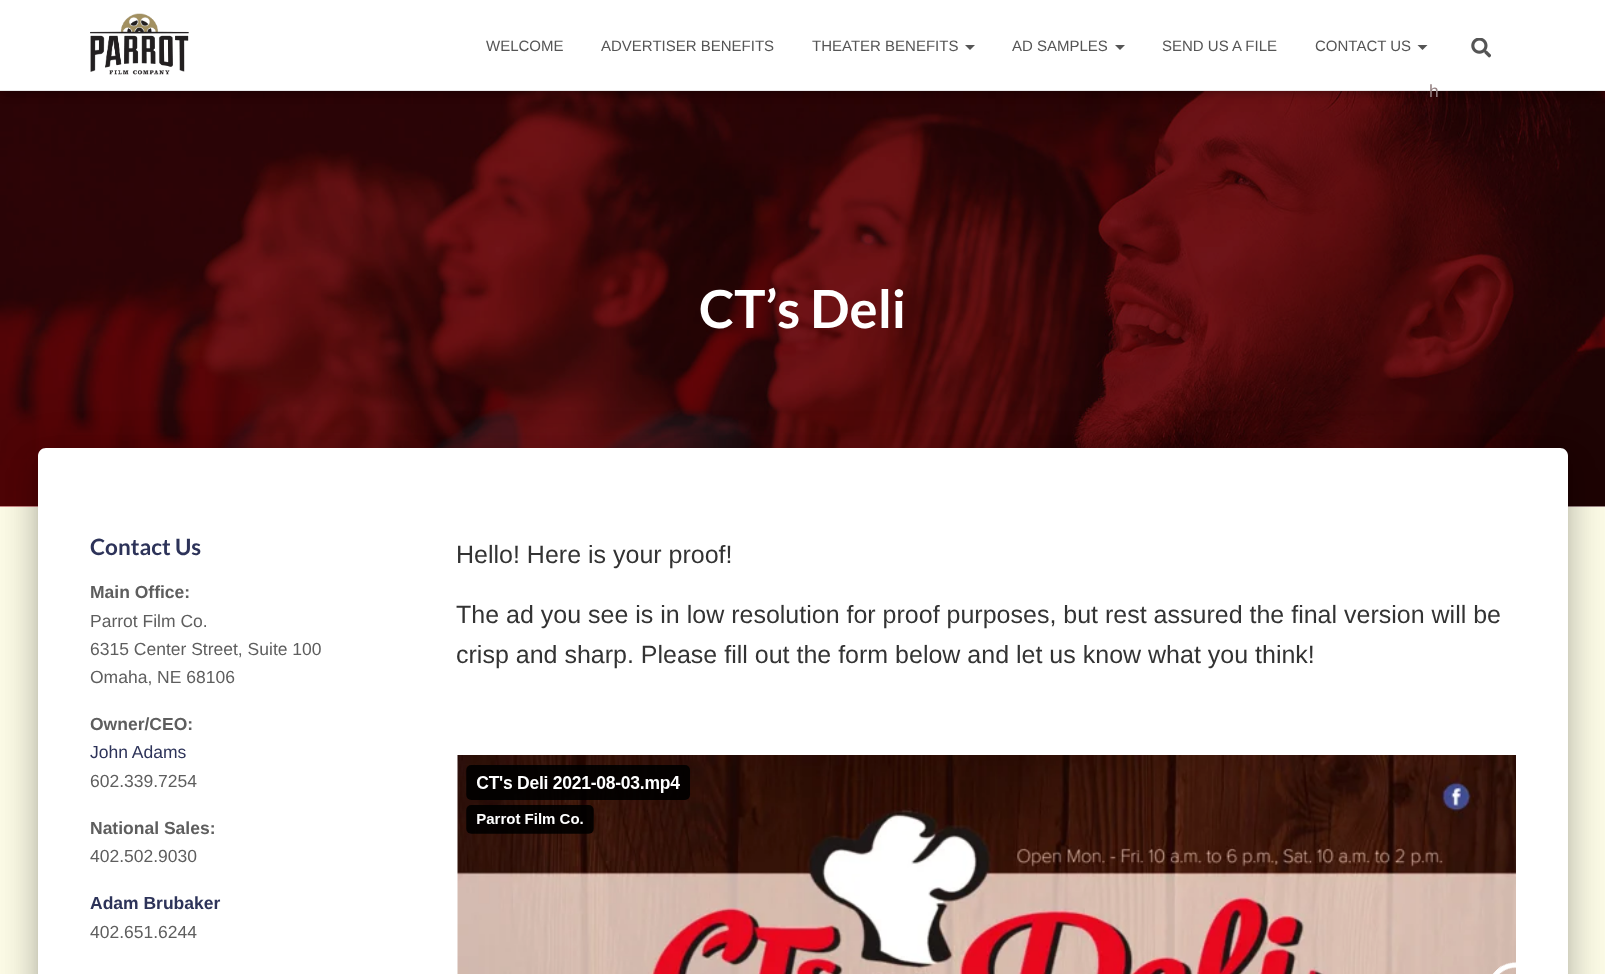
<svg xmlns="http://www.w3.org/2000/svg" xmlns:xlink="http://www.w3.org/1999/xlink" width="1605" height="974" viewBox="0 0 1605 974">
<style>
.cls-1{font:15px Liberation Sans;fill:#555555}
.cls-2{font:17.5px Liberation Sans;fill:#958283}
.cls-3{font:bold 52.5px Lato;fill:#ffffff}
.cls-4{font:bold 22.5px Lato;fill:#2d3359}
.cls-5{font:bold 17.5px Liberation Sans;fill:#5e5e5e}
.cls-6{font:17.5px Liberation Sans;fill:#5e5e5e}
.cls-7{font:17.5px Liberation Sans;fill:#2d3359}
.cls-8{font:bold 17.5px Liberation Sans;fill:#2d3359}
.cls-9{font:25px Liberation Sans;fill:#333333}
</style>
<rect width="100%" height="100%" fill="#fcfbe6"/>
<rect fill="#eeeeee" x="0" y="506" width="1605" height="1"/>
<image xlink:href="image2.png" x="0" y="91" width="1605" height="416"/>
<rect fill="#000000" fill-opacity="0.1" filter="blur(3px)" x="3" y="8" width="1600" height="86"/>
<rect fill="#000000" fill-opacity="0.12" filter="blur(6px)" x="0" y="1" width="1605" height="92"/>
<rect fill="#000000" fill-opacity="0.42" filter="blur(6px)" x="8" y="9" width="1590" height="76"/>
<rect fill="#ffffff" x="0" y="0" width="1605" height="90"/>
<rect fill="#e7e7e7" x="0" y="90" width="1605" height="1"/>
<image xlink:href="image0.png" x="90" y="13" width="99" height="62"/>
<path fill="#555555" d="M965 45H975L970 50Z"/>
<path fill="#555555" d="M1115 45H1125L1120 50Z"/>
<path fill="#555555" d="M1417.5 45H1427.5L1422.5 50Z"/>
<image xlink:href="image1.png" x="1471" y="38" width="20" height="20"/>
<rect fill="#000000" fill-opacity="0.2" filter="blur(6px)" x="44" y="464" width="1517" height="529" rx="1"/>
<rect fill="#000000" fill-opacity="0.12" filter="blur(19px)" x="31" y="449" width="1543" height="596" rx="14"/>
<rect fill="#000000" fill-opacity="0.14" filter="blur(15px)" x="35" y="465" width="1535" height="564" rx="10"/>
<path fill="#ffffff" d="M46 448H1560C1564.5 448 1568 451.5 1568 456V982H38V456C38 451.5 41.5 448 46 448Z"/>
<image xlink:href="image3.png" x="457" y="755" width="1059" height="219"/>
<text class="cls-1" x="486" y="51">WELCOME</text>
<text class="cls-1" x="601" y="51">ADVERTISER BENEFITS</text>
<text class="cls-1" x="812" y="51">THEATER BENEFITS</text>
<text class="cls-1" x="1012" y="51">AD SAMPLES</text>
<text class="cls-1" x="1162" y="51">SEND US A FILE</text>
<text class="cls-1" x="1315" y="51">CONTACT US</text>
<text class="cls-2" x="1429" y="97">h</text>
<text class="cls-3" x="699" y="328">CT’s Deli</text>
<text class="cls-4" x="90" y="555">Contact Us</text>
<text class="cls-5" x="90" y="598">Main Office:</text>
<text class="cls-6"><tspan x="90" y="627">Parrot Film Co.</tspan><tspan x="90" y="655">6315 Center Street, Suite 100</tspan><tspan x="90" y="683">Omaha, NE 68106</tspan></text>
<text class="cls-5" x="90" y="730">Owner/CEO:</text>
<text class="cls-7" x="90" y="758">John Adams</text>
<text class="cls-6" x="90" y="787">602.339.7254</text>
<text class="cls-5" x="90" y="834">National Sales:</text>
<text class="cls-6" x="90" y="862">402.502.9030</text>
<text class="cls-8" x="90" y="909">Adam Brubaker</text>
<text class="cls-6" x="90" y="938">402.651.6244</text>
<text class="cls-9" x="456" y="563">Hello! Here is your proof!</text>
<text class="cls-9"><tspan x="456" y="623">The ad you see is in low resolution for proof purposes, but rest assured the final version will be</tspan><tspan x="456" y="663">crisp and sharp. Please fill out the form below and let us know what you think!</tspan></text>
</svg>
